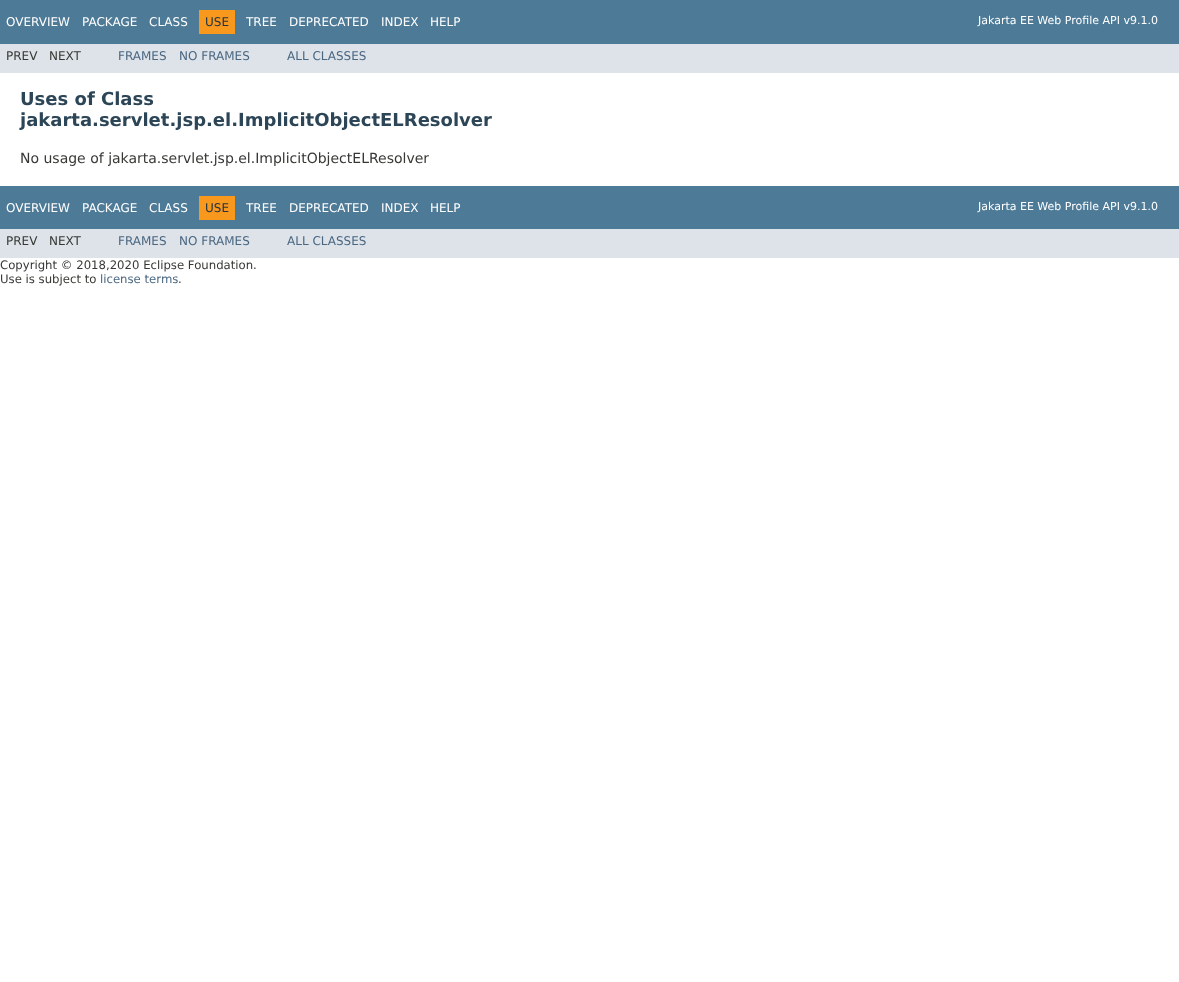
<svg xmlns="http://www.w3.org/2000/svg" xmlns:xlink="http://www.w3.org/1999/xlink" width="1179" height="982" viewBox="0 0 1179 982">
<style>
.cls-1{font:12px DejaVu Sans;fill:#ffffff}
.cls-2{font:12px DejaVu Sans;fill:#253441}
.cls-3{font:11px DejaVu Sans;fill:#ffffff}
.cls-4{font:12px DejaVu Sans;fill:#353833}
.cls-5{font:12px DejaVu Sans;fill:#4a6782}
.cls-6{font:bold 18px DejaVu Sans;fill:#2c4557}
.cls-7{font:14px DejaVu Sans;fill:#353833}
.cls-8{font:11.7px DejaVu Sans;fill:#353833}
.cls-9{font:11.7px DejaVu Sans;fill:#4a6782}
</style>
<rect width="100%" height="100%" fill="#ffffff"/>
<rect fill="#4d7a97" x="0" y="0" width="1179" height="44"/>
<rect fill="#f8981d" x="199" y="10" width="36" height="24"/>
<rect fill="#dee3e9" x="0" y="44" width="1179" height="29"/>
<rect fill="#4d7a97" x="0" y="186" width="1179" height="43"/>
<rect fill="#f8981d" x="199" y="196" width="36" height="24"/>
<rect fill="#dee3e9" x="0" y="229" width="1179" height="29"/>
<text class="cls-1" x="6" y="26">OVERVIEW</text>
<text class="cls-1" x="82" y="26">PACKAGE</text>
<text class="cls-1" x="149" y="26">CLASS</text>
<text class="cls-2" x="205" y="26">USE</text>
<text class="cls-1" x="246" y="26">TREE</text>
<text class="cls-1" x="289" y="26">DEPRECATED</text>
<text class="cls-1" x="381" y="26">INDEX</text>
<text class="cls-1" x="430" y="26">HELP</text>
<text class="cls-3" x="978" y="24">Jakarta EE Web Profile API v9.1.0</text>
<text class="cls-4" x="6" y="60">PREV</text>
<text class="cls-4" x="49" y="60">NEXT</text>
<text class="cls-5" x="118" y="60">FRAMES</text>
<text class="cls-5" x="179" y="60">NO FRAMES</text>
<text class="cls-5" x="287" y="60">ALL CLASSES</text>
<text class="cls-6"><tspan x="20" y="105">Uses of Class</tspan><tspan x="20" y="126">jakarta.servlet.jsp.el.ImplicitObjectELResolver</tspan></text>
<text class="cls-7" x="20" y="163">No usage of jakarta.servlet.jsp.el.ImplicitObjectELResolver</text>
<text class="cls-1" x="6" y="212">OVERVIEW</text>
<text class="cls-1" x="82" y="212">PACKAGE</text>
<text class="cls-1" x="149" y="212">CLASS</text>
<text class="cls-2" x="205" y="212">USE</text>
<text class="cls-1" x="246" y="212">TREE</text>
<text class="cls-1" x="289" y="212">DEPRECATED</text>
<text class="cls-1" x="381" y="212">INDEX</text>
<text class="cls-1" x="430" y="212">HELP</text>
<text class="cls-3" x="978" y="210">Jakarta EE Web Profile API v9.1.0</text>
<text class="cls-4" x="6" y="245">PREV</text>
<text class="cls-4" x="49" y="245">NEXT</text>
<text class="cls-5" x="118" y="245">FRAMES</text>
<text class="cls-5" x="179" y="245">NO FRAMES</text>
<text class="cls-5" x="287" y="245">ALL CLASSES</text>
<text class="cls-8"><tspan x="0" y="269">Copyright © 2018,2020 Eclipse Foundation.</tspan><tspan x="0" y="283">Use is subject to</tspan></text>
<text class="cls-9" x="100" y="283">license terms</text>
<text class="cls-8" x="178" y="283">.</text>
</svg>
